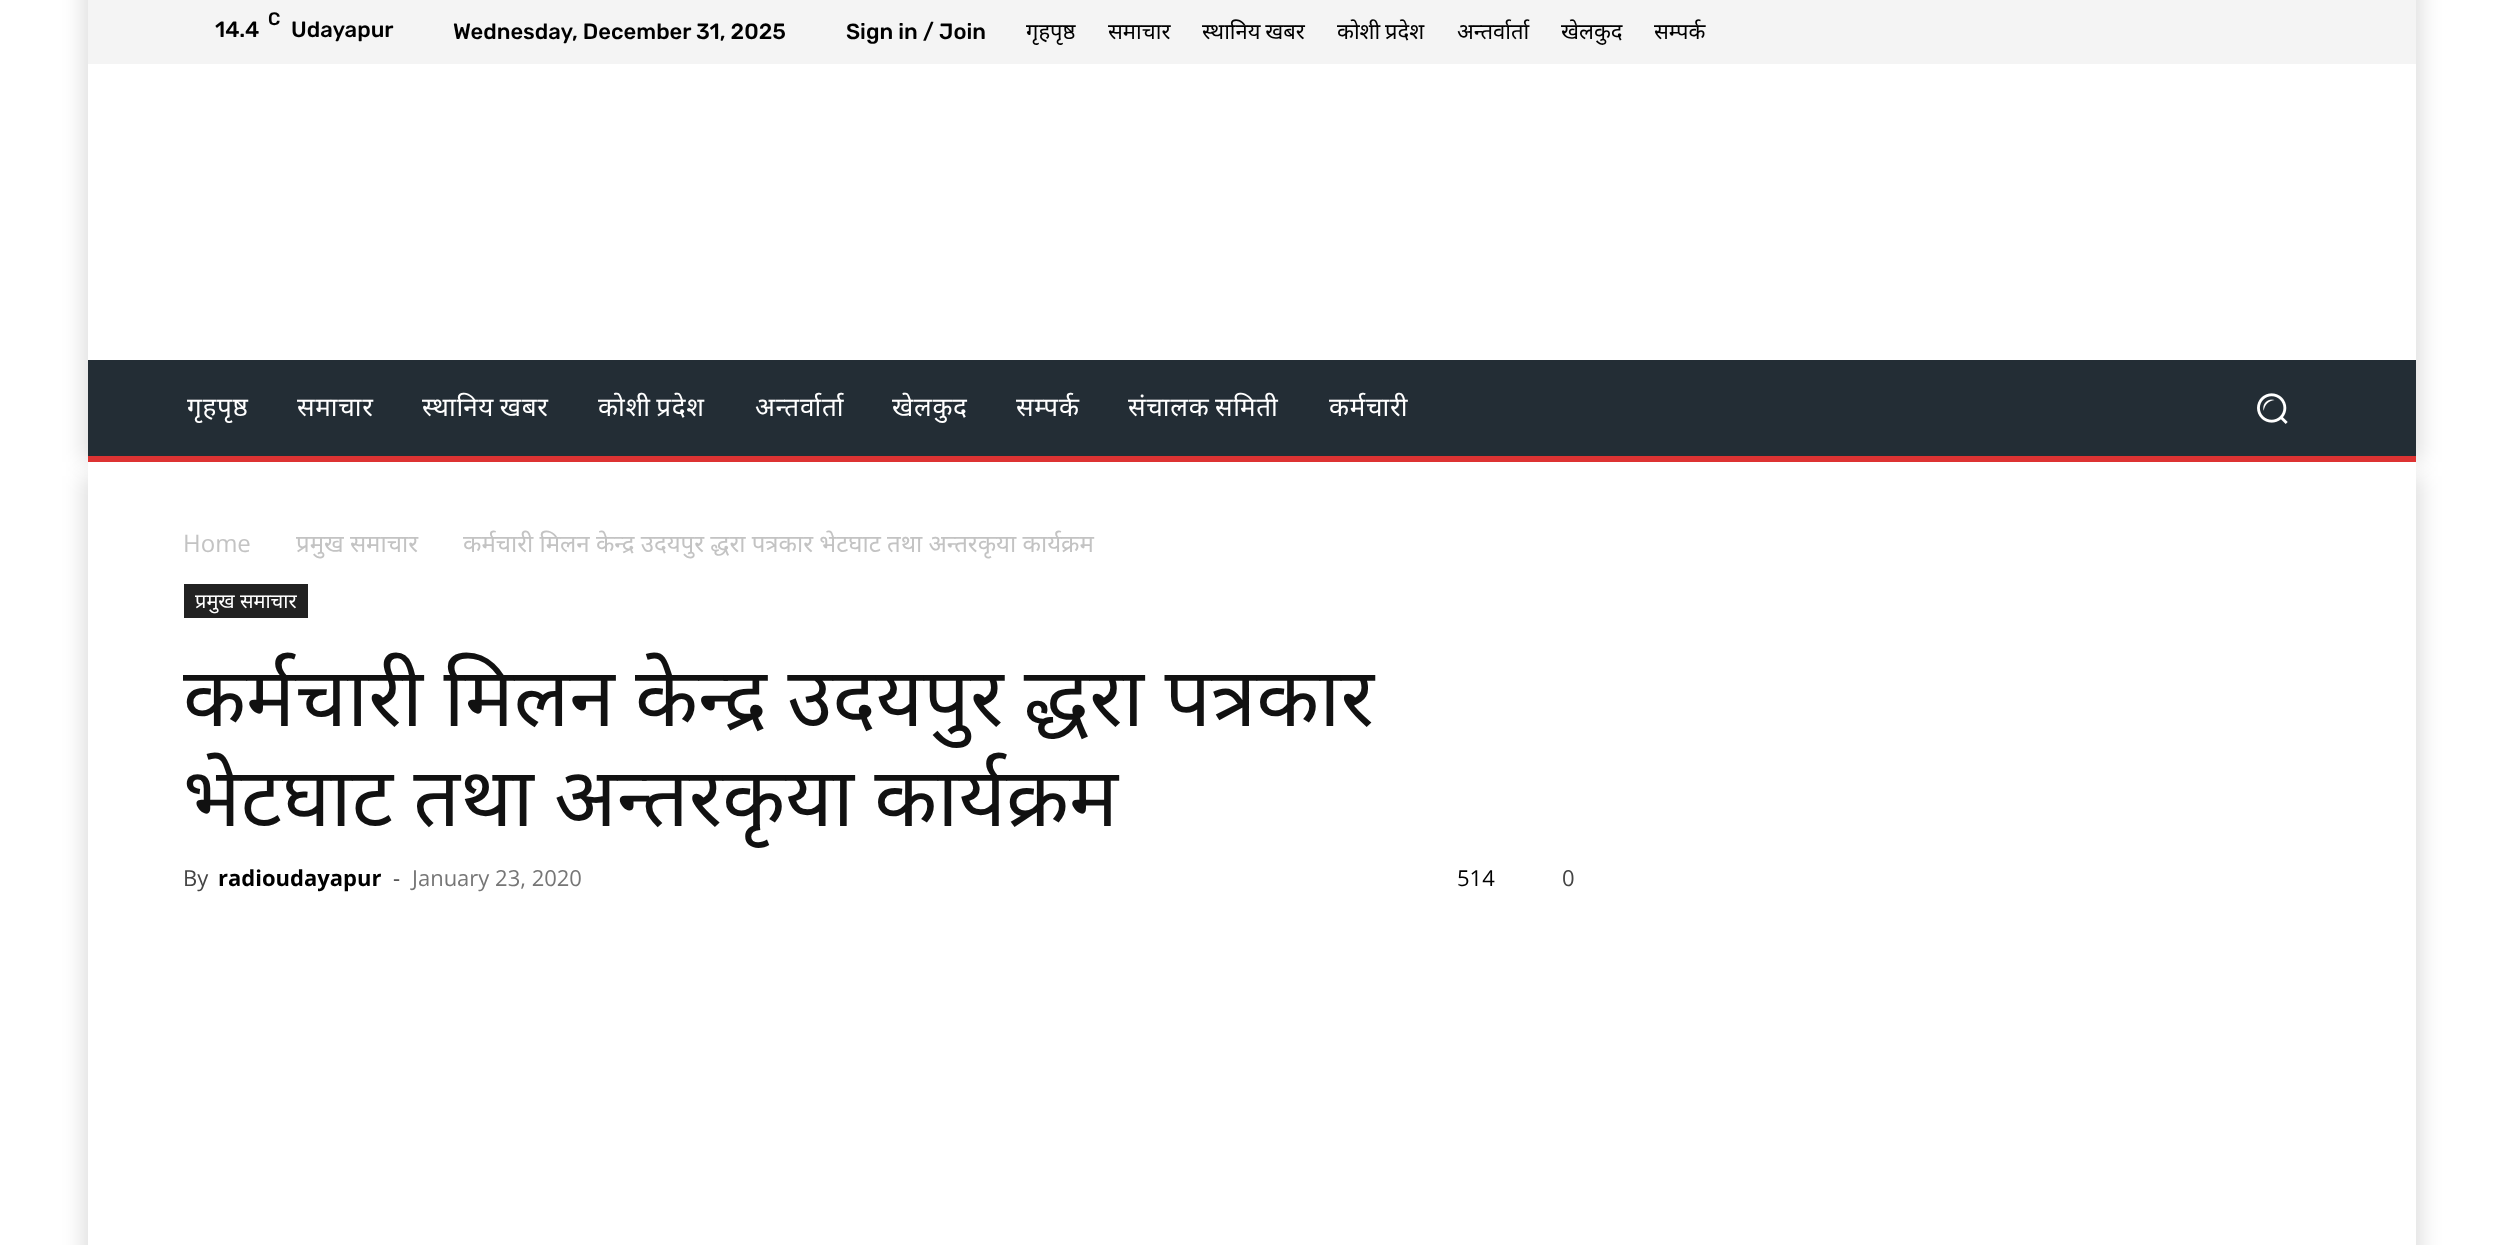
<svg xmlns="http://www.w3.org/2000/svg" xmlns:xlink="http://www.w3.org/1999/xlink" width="2501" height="1245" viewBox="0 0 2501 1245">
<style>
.cls-1{font:500 18px Rubik;fill:#000000}
.cls-2{font:500 22px Rubik;fill:#000000}
.cls-3{font:22px Noto Sans;fill:#000000}
.cls-4{font:26px Noto Sans;letter-spacing:0.75px;fill:#ffffff}
.cls-5{font:24px Open Sans;fill:#c3c3c3}
.cls-6{font:24px Noto Sans;fill:#c3c3c3}
.cls-7{font:20px Noto Sans;fill:#ffffff}
.cls-8{font:82px Noto Sans;fill:#111111}
.cls-9{font:22px Open Sans;fill:#444444}
.cls-10{font:bold 22px Open Sans;fill:#000000}
.cls-11{font:22px Open Sans;fill:#767676}
.cls-12{font:22px Open Sans;fill:#000000}
</style>
<defs>
<clipPath id="clip1"><path d="M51 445H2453V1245H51ZM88 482H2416V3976H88Z" clip-rule="evenodd"/></clipPath>
</defs>
<rect width="100%" height="100%" fill="#ffffff"/>
<rect fill="#000000" fill-opacity="0.12" filter="blur(10px)" x="82" y="-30" width="2340" height="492"/>
<rect fill="#f4f4f4" x="88" y="0" width="2328" height="64"/>
<g clip-path="url(#clip1)">
<rect fill="#000000" fill-opacity="0.12" filter="blur(10px)" x="82" y="476" width="2340" height="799"/>
</g>
<rect fill="#ffffff" x="88" y="64" width="2328" height="418"/>
<rect fill="#232d35" x="88" y="360" width="2328" height="96"/>
<image xlink:href="image0.png" x="2257" y="393" width="31" height="31"/>
<rect fill="#dd3333" x="88" y="456" width="2328" height="6"/>
<rect fill="#222222" x="184" y="584" width="124" height="34"/>
<text class="cls-1" x="268" y="25">C</text>
<text class="cls-2" x="215" y="37">14.4</text>
<text class="cls-2" x="291" y="37">Udayapur</text>
<text class="cls-2" x="453" y="39">Wednesday, December 31, 2025</text>
<text class="cls-2" x="846" y="39">Sign in / Join</text>
<text class="cls-3" x="1026" y="39">गृहपृष्ठ</text>
<text class="cls-3" x="1108" y="39">समाचार</text>
<text class="cls-3" x="1202" y="39" word-spacing="-1">स्थानिय खबर</text>
<text class="cls-3" x="1337" y="39" word-spacing="-1">कोशी प्रदेश</text>
<text class="cls-3" x="1457" y="39">अन्तर्वार्ता</text>
<text class="cls-3" x="1561" y="39">खेलकुद</text>
<text class="cls-3" x="1654" y="39">सम्पर्क</text>
<text class="cls-4" x="187" y="416">गृहपृष्ठ</text>
<text class="cls-4" x="297" y="416">समाचार</text>
<text class="cls-4" x="422" y="416" word-spacing="-2">स्थानिय खबर</text>
<text class="cls-4" x="598" y="416" word-spacing="-2">कोशी प्रदेश</text>
<text class="cls-4" x="755" y="416">अन्तर्वार्ता</text>
<text class="cls-4" x="892" y="416">खेलकुद</text>
<text class="cls-4" x="1016" y="416">सम्पर्क</text>
<text class="cls-4" x="1128" y="416" word-spacing="-2">संचालक समिती</text>
<text class="cls-4" x="1329" y="416">कर्मचारी</text>
<text class="cls-5" x="183" y="552">Home</text>
<text class="cls-6" x="296" y="552">प्रमुख समाचार</text>
<text class="cls-6" x="463" y="552">कर्मचारी मिलन केन्द्र उदयपुर द्धरा पत्रकार भेटघाट तथा अन्तरकृया कार्यक्रम</text>
<text class="cls-7" x="195" y="608">प्रमुख समाचार</text>
<text class="cls-8"><tspan x="183" y="726" word-spacing="-1">कर्मचारी मिलन केन्द्र उदयपुर द्धरा पत्रकार</tspan><tspan x="183" y="826" word-spacing="-1">भेटघाट तथा अन्तरकृया कार्यक्रम</tspan></text>
<text class="cls-9" x="183" y="886">By</text>
<text class="cls-10" x="218" y="886">radioudayapur</text>
<text class="cls-9" x="393" y="886">-</text>
<text class="cls-11" x="412" y="886">January 23, 2020</text>
<text class="cls-12" x="1457" y="886">514</text>
<text class="cls-9" x="1562" y="886">0</text>
</svg>
